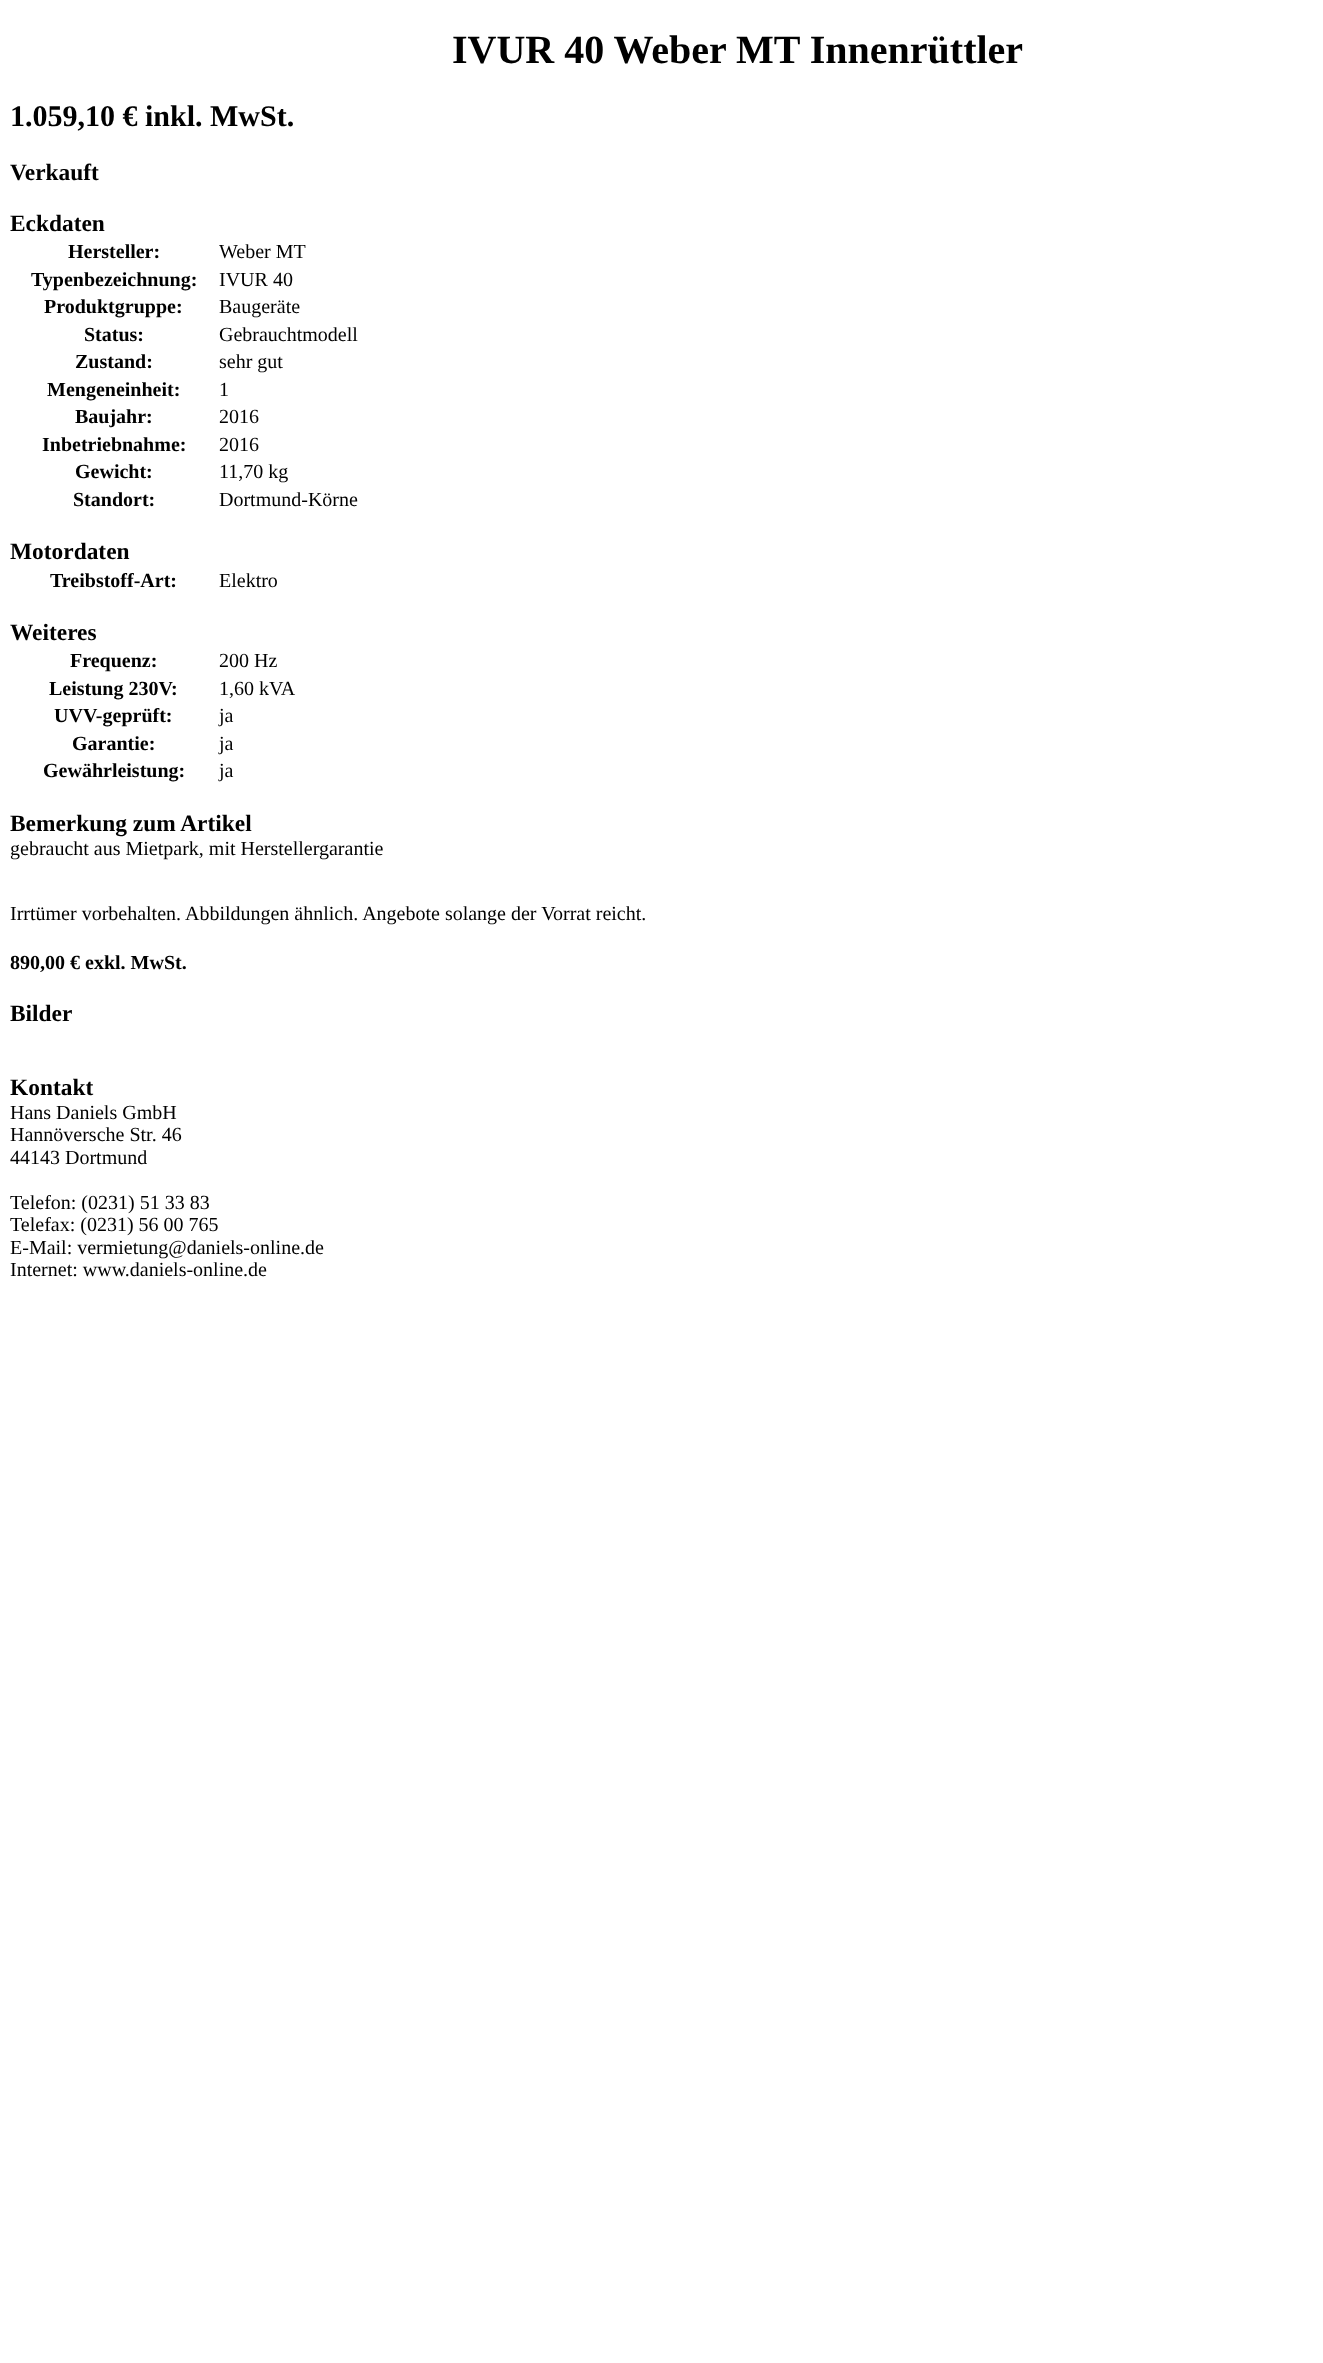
<svg xmlns="http://www.w3.org/2000/svg" xmlns:xlink="http://www.w3.org/1999/xlink" width="1323" height="2363" viewBox="0 0 1323 2363">
<style>
.cls-1{font:bold 40px Liberation Serif;fill:#000000}
.cls-2{font:bold 30px Liberation Serif;fill:#000000}
.cls-3{font:bold 23.4px Liberation Serif;fill:#000000}
.cls-4{font:bold 20px Liberation Serif;fill:#000000}
.cls-5{font:20px Liberation Serif;fill:#000000}
</style>
<rect width="100%" height="100%" fill="#ffffff"/>
<text class="cls-1" x="452" y="63">IVUR 40 Weber MT Innenrüttler</text>
<text class="cls-2" x="10" y="126">1.059,10 € inkl. MwSt.</text>
<text class="cls-3" x="10" y="180">Verkauft</text>
<text class="cls-3" x="10" y="231">Eckdaten</text>
<text class="cls-4" x="68" y="258">Hersteller:</text>
<text class="cls-5" x="219" y="258">Weber MT</text>
<text class="cls-4" x="31" y="286">Typenbezeichnung:</text>
<text class="cls-5" x="219" y="286">IVUR 40</text>
<text class="cls-4" x="44" y="313">Produktgruppe:</text>
<text class="cls-5" x="219" y="313">Baugeräte</text>
<text class="cls-4" x="84" y="341">Status:</text>
<text class="cls-5" x="219" y="341">Gebrauchtmodell</text>
<text class="cls-4" x="75" y="368">Zustand:</text>
<text class="cls-5" x="219" y="368">sehr gut</text>
<text class="cls-4" x="47" y="396">Mengeneinheit:</text>
<text class="cls-5" x="219" y="396">1</text>
<text class="cls-4" x="75" y="423">Baujahr:</text>
<text class="cls-5" x="219" y="423">2016</text>
<text class="cls-4" x="42" y="451">Inbetriebnahme:</text>
<text class="cls-5" x="219" y="451">2016</text>
<text class="cls-4" x="75" y="478">Gewicht:</text>
<text class="cls-5" x="219" y="478">11,70 kg</text>
<text class="cls-4" x="73" y="506">Standort:</text>
<text class="cls-5" x="219" y="506">Dortmund-Körne</text>
<text class="cls-3" x="10" y="559">Motordaten</text>
<text class="cls-4" x="50" y="587">Treibstoff-Art:</text>
<text class="cls-5" x="219" y="587">Elektro</text>
<text class="cls-3" x="10" y="640">Weiteres</text>
<text class="cls-4" x="70" y="667">Frequenz:</text>
<text class="cls-5" x="219" y="667">200 Hz</text>
<text class="cls-4" x="49" y="695">Leistung 230V:</text>
<text class="cls-5" x="219" y="695">1,60 kVA</text>
<text class="cls-4" x="54" y="722">UVV-geprüft:</text>
<text class="cls-5" x="219" y="722">ja</text>
<text class="cls-4" x="72" y="750">Garantie:</text>
<text class="cls-5" x="219" y="750">ja</text>
<text class="cls-4" x="43" y="777">Gewährleistung:</text>
<text class="cls-5" x="219" y="777">ja</text>
<text class="cls-3" x="10" y="831">Bemerkung zum Artikel</text>
<text class="cls-5" x="10" y="855">gebraucht aus Mietpark, mit Herstellergarantie</text>
<text class="cls-5" x="10" y="920">Irrtümer vorbehalten. Abbildungen ähnlich. Angebote solange der Vorrat reicht.</text>
<text class="cls-4" x="10" y="969">890,00 € exkl. MwSt.</text>
<text class="cls-3" x="10" y="1021">Bilder</text>
<text class="cls-3" x="10" y="1095">Kontakt</text>
<text class="cls-5"><tspan x="10" y="1119">Hans Daniels GmbH</tspan><tspan x="10" y="1141">Hannöversche Str. 46</tspan><tspan x="10" y="1164">44143 Dortmund</tspan></text>
<text class="cls-5"><tspan x="10" y="1209">Telefon: (0231) 51 33 83</tspan><tspan x="10" y="1231">Telefax: (0231) 56 00 765</tspan><tspan x="10" y="1254">E-Mail: vermietung@daniels-online.de</tspan><tspan x="10" y="1276">Internet: www.daniels-online.de</tspan></text>
</svg>
